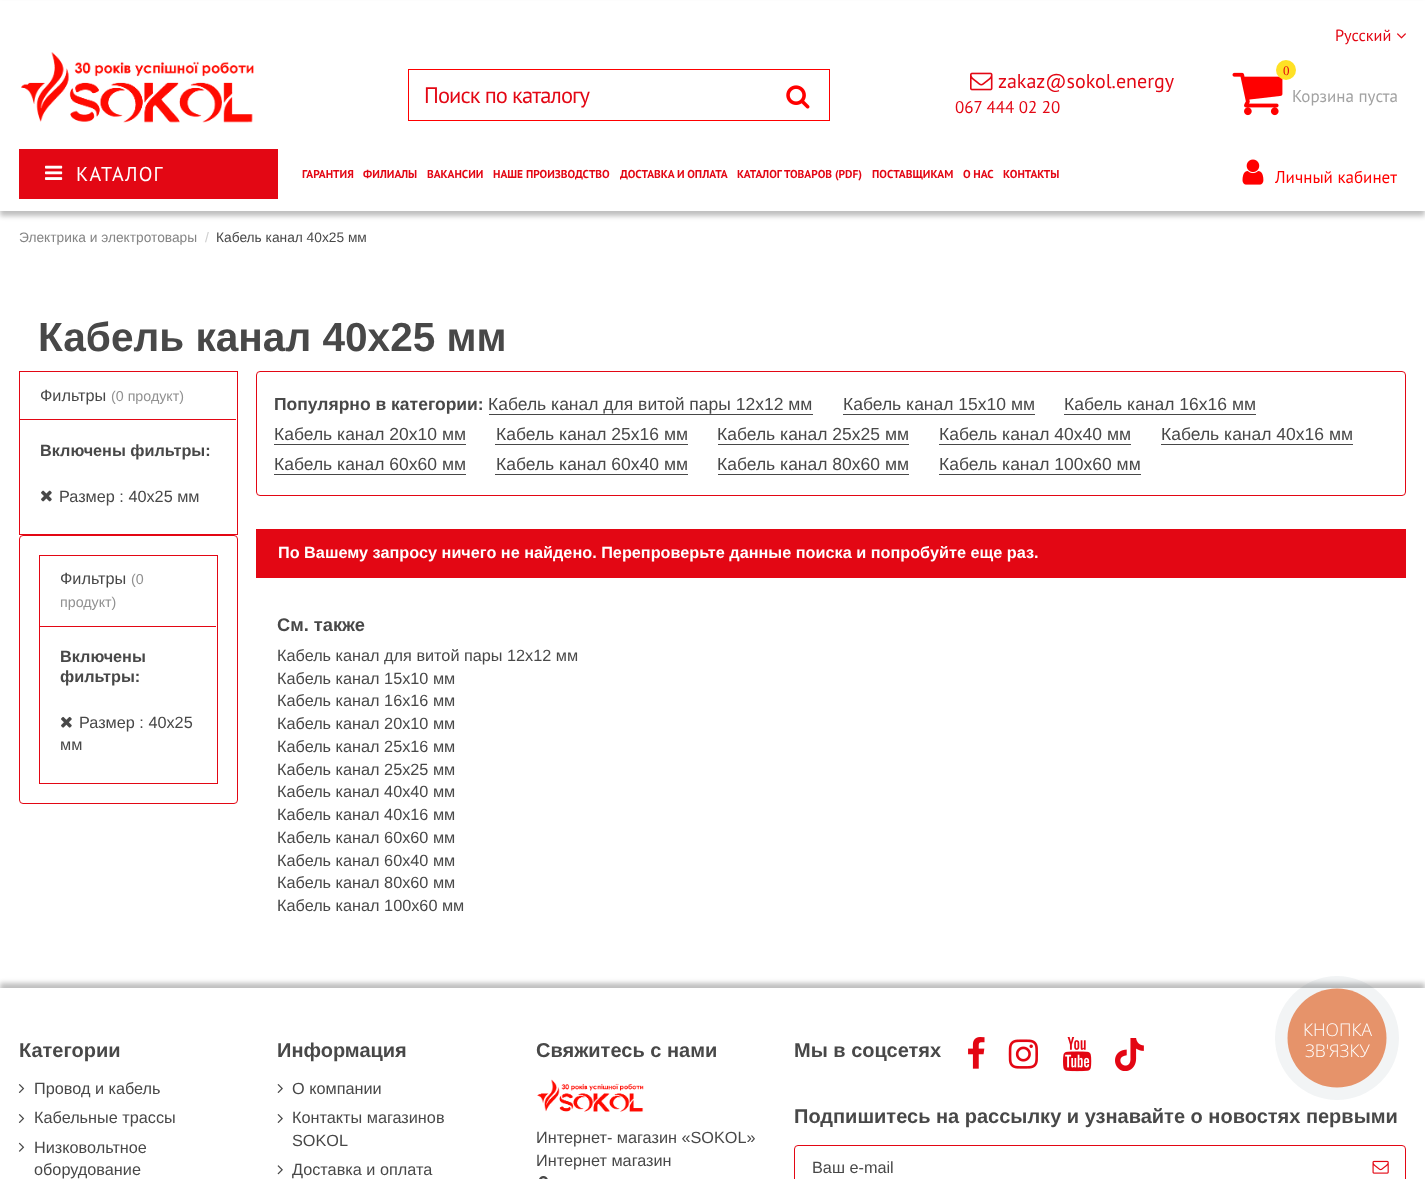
<svg xmlns="http://www.w3.org/2000/svg" xmlns:xlink="http://www.w3.org/1999/xlink" width="1425" height="1179" viewBox="0 0 1425 1179">
<style>
.cls-1{font:16.25px PT Sans;fill:#e30714}
.cls-2{font:22.5px PT Sans;letter-spacing:-0.9px;fill:#e30714}
.cls-3{font:20px PT Sans;fill:#e30714}
.cls-4{font:17px PT Sans;fill:#e30714}
.cls-5{font:13px Liberation Serif;fill:#e30714}
.cls-6{font:17px PT Sans;fill:#a2a2a2}
.cls-7{font:20px PT Sans;letter-spacing:1.25px;fill:#ffffff}
.cls-8{font:bold 11.4px PT Sans;fill:#e30714}
.cls-9{font:17px PT Sans;fill:#ff0000}
.cls-10{font:13.75px Liberation Sans;fill:#858585}
.cls-11{font:13.75px Liberation Sans;fill:#cecece}
.cls-12{font:13.75px Liberation Sans;fill:#484848}
.cls-13{font:bold 40.6px Liberation Sans;fill:#484848}
.cls-14{font:16.25px Liberation Sans;fill:#484848}
.cls-15{font:14.25px Liberation Sans;fill:#919191}
.cls-16{font:bold 16.25px Liberation Sans;fill:#484848}
.cls-17{font:bold 17.5px Liberation Sans;fill:#484848}
.cls-18{font:17.5px Liberation Sans;fill:#484848}
.cls-19{font:bold 16.25px Liberation Sans;fill:#ffffff}
.cls-20{font:bold 18.25px Liberation Sans;fill:#484848}
.cls-21{font:bold 20px Liberation Sans;fill:#484848}
.cls-22{font:300 17.5px Open Sans;fill:#ffffff}
</style>
<rect width="100%" height="100%" fill="#ffffff"/>
<rect fill="#000000" fill-opacity="0.25" filter="blur(2.5px)" x="0" y="5" width="1425" height="211"/>
<rect fill="#ffffff" x="0" y="1" width="1425" height="210"/>
<image xlink:href="image0.png" x="1397" y="33" width="9" height="6"/>
<image xlink:href="image1.png" x="21" y="52" width="233" height="71"/>
<rect fill="none" stroke="#ff0000" x="408.5" y="69.5" width="421" height="51"/>
<image xlink:href="image2.png" x="786" y="85" width="24" height="24"/>
<image xlink:href="image3.png" x="970" y="72" width="23" height="19"/>
<image xlink:href="image4.png" x="1232" y="72" width="51" height="44"/>
<circle fill="#ffe125" cx="1286" cy="70" r="10"/>
<rect fill="#e30714" x="19" y="149" width="259" height="50"/>
<image xlink:href="image5.png" x="45" y="165" width="18" height="15"/>
<image xlink:href="image6.png" x="1242" y="159" width="22" height="26"/>
<rect fill="none" stroke="#e30714" x="19.5" y="371.5" width="218" height="163"/>
<rect fill="#e30714" x="20" y="419" width="216" height="1"/>
<image xlink:href="image7.png" x="41" y="490" width="11" height="12"/>
<rect fill="none" stroke="#e30714" x="19.5" y="535.5" width="218" height="268" rx="3.5"/>
<rect fill="none" stroke="#e30714" x="39.5" y="555.5" width="178" height="228"/>
<rect fill="#e30714" x="40" y="626" width="176" height="1"/>
<image xlink:href="image8.png" x="61" y="716" width="11" height="12"/>
<rect fill="none" stroke="#e30714" x="256.5" y="371.5" width="1149" height="124" rx="3.5"/>
<rect fill="#484848" x="489" y="414" width="324" height="1"/>
<rect fill="#484848" x="843" y="414" width="192" height="1"/>
<rect fill="#484848" x="1064" y="414" width="192" height="1"/>
<rect fill="#484848" x="274" y="444" width="192" height="1"/>
<rect fill="#484848" x="495" y="444" width="193" height="1"/>
<rect fill="#484848" x="718" y="444" width="191" height="1"/>
<rect fill="#484848" x="939" y="444" width="192" height="1"/>
<rect fill="#484848" x="1161" y="444" width="192" height="1"/>
<rect fill="#484848" x="274" y="474" width="192" height="1"/>
<rect fill="#484848" x="495" y="474" width="193" height="1"/>
<rect fill="#484848" x="718" y="474" width="191" height="1"/>
<rect fill="#484848" x="939" y="474" width="202" height="1"/>
<rect fill="#e30714" x="256" y="529" width="1150" height="49"/>
<rect fill="#000000" fill-opacity="0.25" filter="blur(2.5px)" x="0" y="983" width="1425" height="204"/>
<rect fill="#ffffff" x="0" y="988" width="1425" height="191"/>
<image xlink:href="image9.png" x="18" y="1084" width="7" height="9"/>
<image xlink:href="image9.png" x="18" y="1114" width="7" height="9"/>
<image xlink:href="image10.png" x="18" y="1142" width="7" height="10"/>
<image xlink:href="image11.png" x="277" y="1084" width="6" height="9"/>
<image xlink:href="image11.png" x="277" y="1114" width="6" height="9"/>
<image xlink:href="image12.png" x="277" y="1165" width="6" height="10"/>
<image xlink:href="image13.png" x="537" y="1079" width="107" height="33"/>
<image xlink:href="image14.png" x="539" y="1176" width="9" height="3"/>
<image xlink:href="image15.png" x="968" y="1037" width="17" height="32"/>
<image xlink:href="image16.png" x="1008" y="1039" width="30" height="30"/>
<image xlink:href="image17.png" x="1063" y="1037" width="29" height="35"/>
<image xlink:href="image18.png" x="1115" y="1038" width="29" height="33"/>
<rect fill="none" stroke="#e30714" x="794.5" y="1145.5" width="611" height="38" rx="3.5"/>
<image xlink:href="image19.png" x="1372" y="1160" width="17" height="14"/>
<circle fill="#2a405d" fill-opacity="0.06" cx="1337" cy="1038" r="62"/>
<circle fill="#e6936a" cx="1337" cy="1038" r="49.5"/>
<text class="cls-1" x="1335" y="41">Русский</text>
<text class="cls-2" x="424" y="103">Поиск по каталогу</text>
<text class="cls-3" x="998" y="88">zakaz@sokol.energy</text>
<text class="cls-4" x="955" y="113">067 444 02 20</text>
<text class="cls-5" x="1283" y="75">0</text>
<text class="cls-6" x="1292" y="102">Корзина пуста</text>
<text class="cls-7" x="76" y="181">КАТАЛОГ</text>
<text class="cls-8" x="302" y="178">ГАРАНТИЯ</text>
<text class="cls-8" x="363" y="178">ФИЛИАЛЫ</text>
<text class="cls-8" x="427" y="178">ВАКАНСИИ</text>
<text class="cls-8" x="493" y="178">НАШЕ ПРОИЗВОДСТВО</text>
<text class="cls-8" x="620" y="178">ДОСТАВКА И ОПЛАТА</text>
<text class="cls-8" x="737" y="178">КАТАЛОГ ТОВАРОВ (PDF)</text>
<text class="cls-8" x="872" y="178">ПОСТАВЩИКАМ</text>
<text class="cls-8" x="963" y="178">О НАС</text>
<text class="cls-8" x="1003" y="178">КОНТАКТЫ</text>
<text class="cls-9" x="1275" y="183">Личный кабинет</text>
<text class="cls-10" x="19" y="242">Электрика и электротовары</text>
<text class="cls-11" x="205" y="242">/</text>
<text class="cls-12" x="216" y="242">Кабель канал 40х25 мм</text>
<text class="cls-13" x="38" y="351">Кабель канал 40х25 мм</text>
<text class="cls-14" x="40" y="401">Фильтры</text>
<text class="cls-15" x="111" y="401">(0 продукт)</text>
<text class="cls-16" x="40" y="456">Включены фильтры:</text>
<text class="cls-14" x="59" y="502">Размер : 40х25 мм</text>
<text class="cls-14" x="60" y="584">Фильтры</text>
<text class="cls-15" x="131" y="584">(0</text>
<text class="cls-15" x="60" y="607">продукт)</text>
<text class="cls-16"><tspan x="60" y="662">Включены</tspan><tspan x="60" y="682">фильтры:</tspan></text>
<text class="cls-14" x="79" y="728">Размер : 40х25</text>
<text class="cls-14" x="60" y="750">мм</text>
<text class="cls-17" x="274" y="410">Популярно в категории:</text>
<text class="cls-18" x="488" y="410">Кабель канал для витой пары 12х12 мм</text>
<text class="cls-18" x="843" y="410">Кабель канал 15х10 мм</text>
<text class="cls-18" x="1064" y="410">Кабель канал 16х16 мм</text>
<text class="cls-18" x="274" y="440">Кабель канал 20х10 мм</text>
<text class="cls-18" x="496" y="440">Кабель канал 25х16 мм</text>
<text class="cls-18" x="717" y="440">Кабель канал 25х25 мм</text>
<text class="cls-18" x="939" y="440">Кабель канал 40х40 мм</text>
<text class="cls-18" x="1161" y="440">Кабель канал 40х16 мм</text>
<text class="cls-18" x="274" y="470">Кабель канал 60х60 мм</text>
<text class="cls-18" x="496" y="470">Кабель канал 60х40 мм</text>
<text class="cls-18" x="717" y="470">Кабель канал 80х60 мм</text>
<text class="cls-18" x="939" y="470">Кабель канал 100х60 мм</text>
<text class="cls-19" x="278" y="558">По Вашему запросу ничего не найдено. Перепроверьте данные поиска и попробуйте еще раз.</text>
<text class="cls-20" x="277" y="631">См. также</text>
<text class="cls-14"><tspan x="277" y="661">Кабель канал для витой пары 12х12 мм</tspan><tspan x="277" y="684">Кабель канал 15х10 мм</tspan><tspan x="277" y="706">Кабель канал 16х16 мм</tspan><tspan x="277" y="729">Кабель канал 20х10 мм</tspan><tspan x="277" y="752">Кабель канал 25х16 мм</tspan><tspan x="277" y="775">Кабель канал 25х25 мм</tspan><tspan x="277" y="797">Кабель канал 40х40 мм</tspan><tspan x="277" y="820">Кабель канал 40х16 мм</tspan><tspan x="277" y="843">Кабель канал 60х60 мм</tspan><tspan x="277" y="866">Кабель канал 60х40 мм</tspan><tspan x="277" y="888">Кабель канал 80х60 мм</tspan><tspan x="277" y="911">Кабель канал 100х60 мм</tspan></text>
<text class="cls-21" x="19" y="1057">Категории</text>
<text class="cls-14"><tspan x="34" y="1094">Провод и кабель</tspan><tspan x="34" y="1123">Кабельные трассы</tspan><tspan x="34" y="1153">Низковольтное</tspan><tspan x="34" y="1175">оборудование</tspan></text>
<text class="cls-21" x="277" y="1057">Информация</text>
<text class="cls-14"><tspan x="292" y="1094">О компании</tspan><tspan x="292" y="1123">Контакты магазинов</tspan><tspan x="292" y="1146">SOKOL</tspan><tspan x="292" y="1175">Доставка и оплата</tspan></text>
<text class="cls-21" x="536" y="1057">Свяжитесь с нами</text>
<text class="cls-14"><tspan x="536" y="1143">Интернет- магазин «SOKOL»</tspan><tspan x="536" y="1166">Интернет магазин</tspan></text>
<text class="cls-21" x="794" y="1057">Мы в соцсетях</text>
<text class="cls-21" x="794" y="1123">Подпишитесь на рассылку и узнавайте о новостях первыми</text>
<text class="cls-14" x="812" y="1173">Ваш e-mail</text>
<text class="cls-22" x="1303" y="1036">КНОПКА</text>
<text class="cls-22" x="1305" y="1057">ЗВ'ЯЗКУ</text>
</svg>
